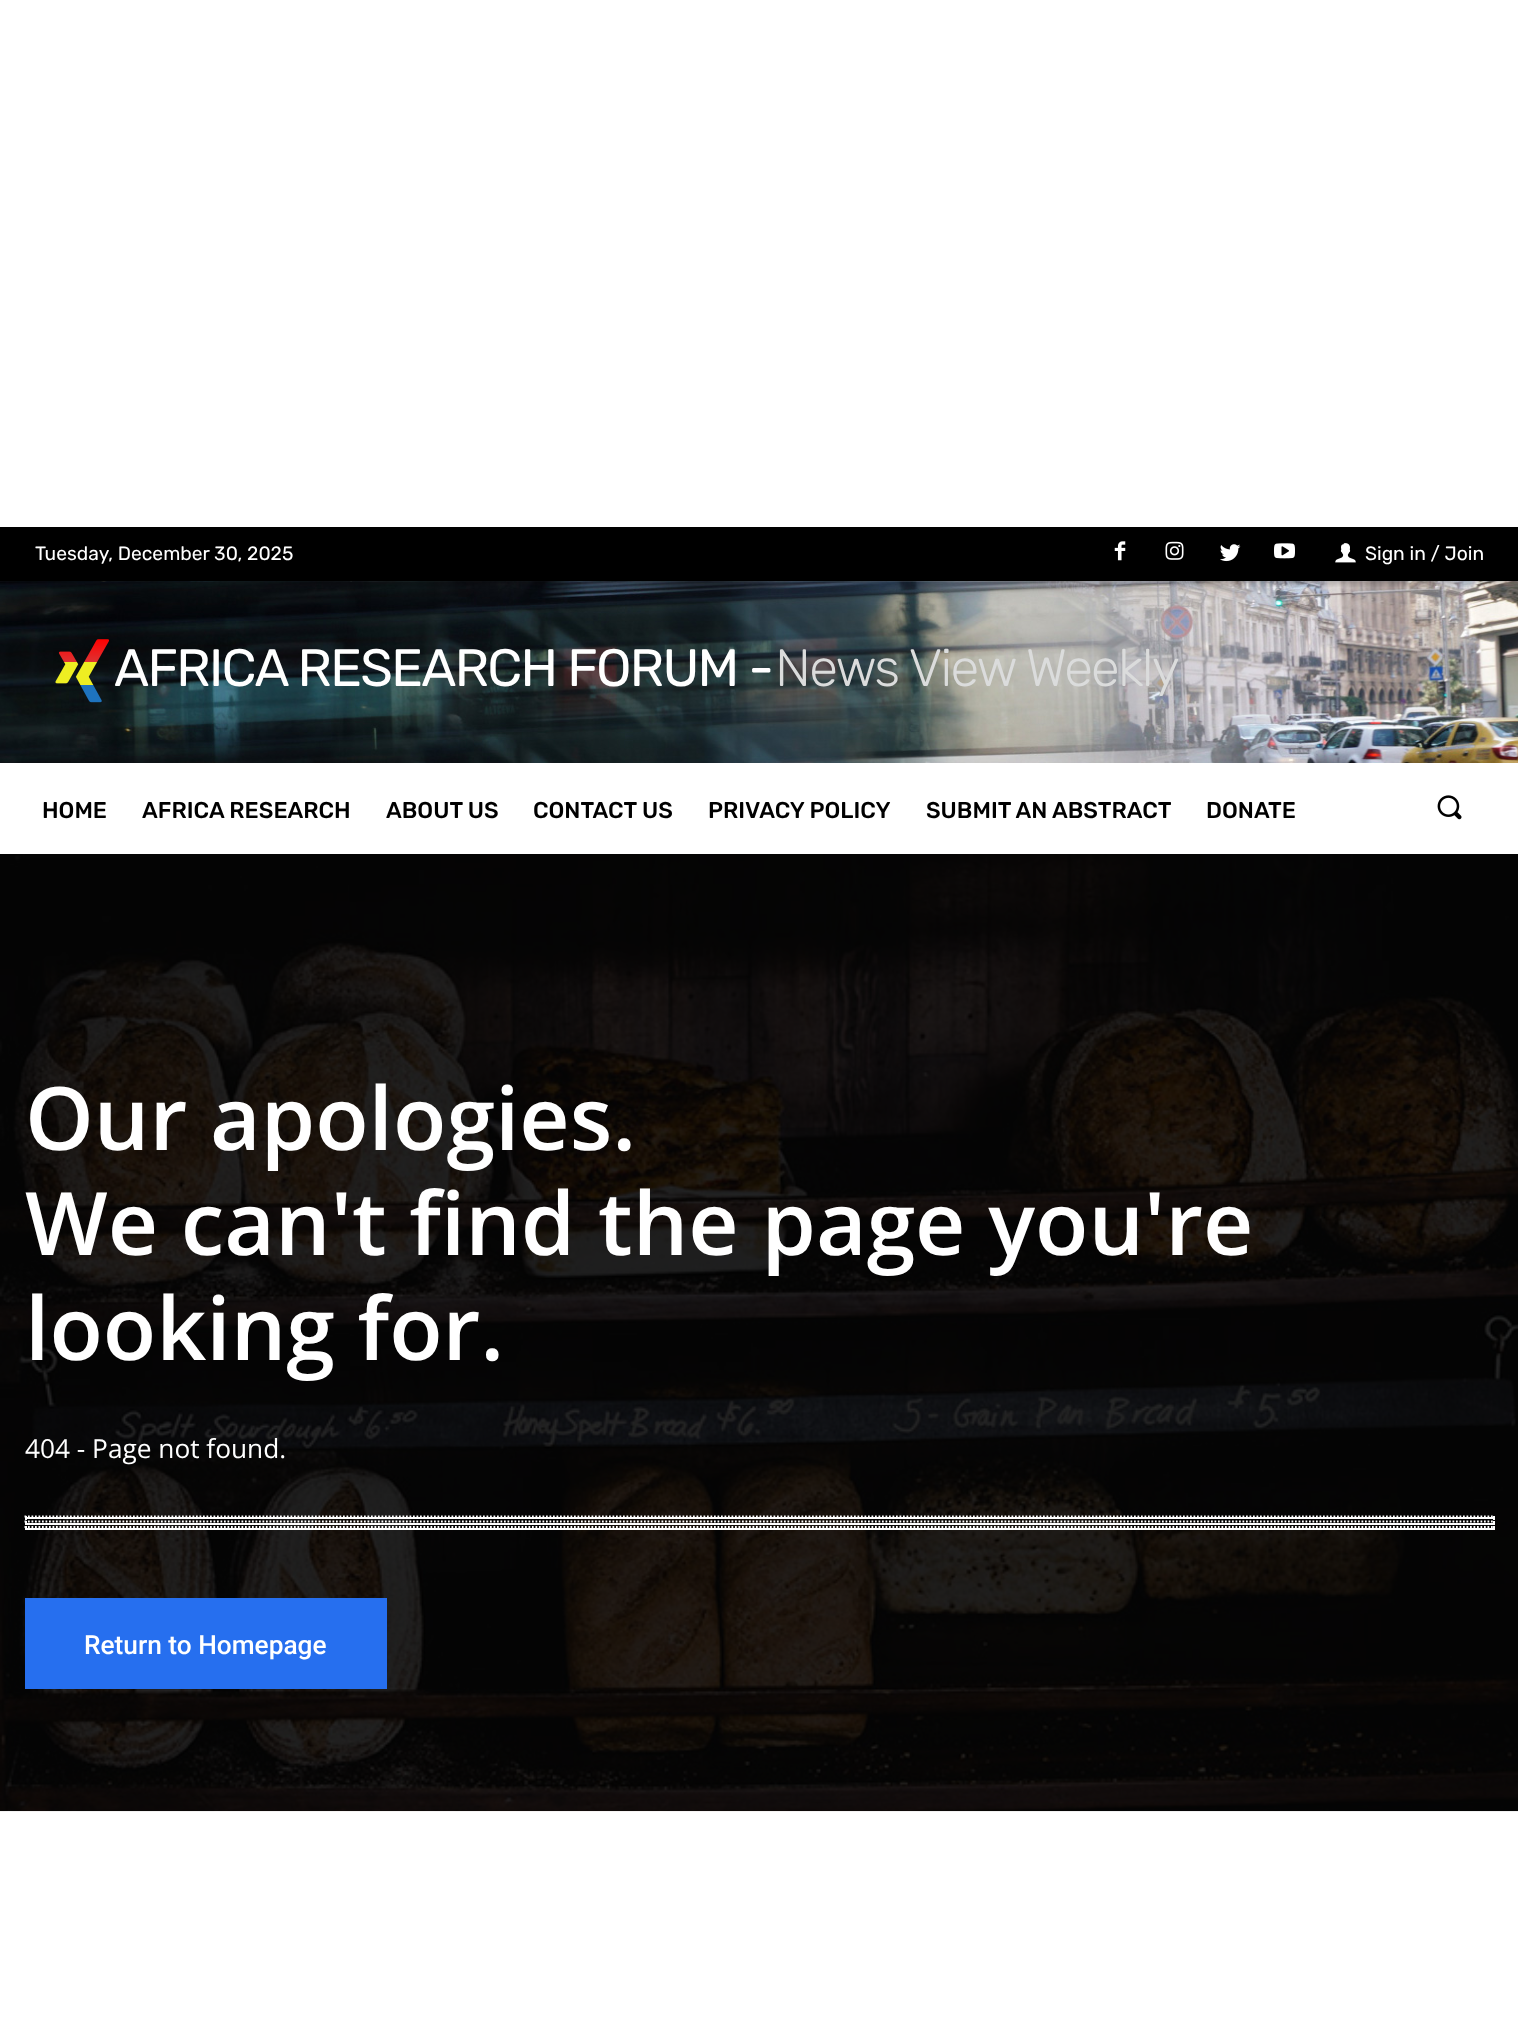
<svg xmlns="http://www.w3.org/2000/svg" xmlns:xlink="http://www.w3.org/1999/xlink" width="1518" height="2030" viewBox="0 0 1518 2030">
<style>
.cls-1{font:19.25px Rubik;fill:#ffffff}
.cls-2{font:52.5px Rubik;letter-spacing:-1.75px;fill:#ffffff}
.cls-3{font:300 52.5px Rubik;letter-spacing:-1.75px;fill:#dbdcdc}
.cls-4{font:500 22.75px Rubik;fill:#000000}
.cls-5{font:600 87.5px Open Sans;fill:#ffffff}
.cls-6{font:26.25px Open Sans;fill:#ffffff}
.cls-7{font:500 26.25px Roboto;fill:#ffffff}
</style>
<defs>
<clipPath id="clip1"><rect x="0" y="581" width="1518" height="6"/></clipPath>
</defs>
<rect width="100%" height="100%" fill="#ffffff"/>
<rect fill="#000000" x="0" y="527" width="1518" height="54"/>
<image xlink:href="image0.png" x="1114" y="541" width="12" height="20"/>
<image xlink:href="image1.png" x="1165" y="541" width="19" height="19"/>
<image xlink:href="image2.png" x="1220" y="544" width="21" height="18"/>
<image xlink:href="image3.png" x="1274" y="543" width="21" height="16"/>
<image xlink:href="image4.png" x="1335" y="543" width="21" height="20"/>
<image xlink:href="image5.png" x="0" y="581" width="1518" height="182"/>
<g clip-path="url(#clip1)">
<rect fill="#0a0000" fill-opacity="0.15" filter="blur(2px)" x="0" y="530" width="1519" height="55"/>
</g>
<image xlink:href="image6.png" x="55" y="639" width="54" height="64"/>
<image xlink:href="image7.png" x="1437" y="795" width="25" height="25"/>
<image xlink:href="image8.png" x="0" y="854" width="1518" height="958"/>
<path fill="none" stroke="#ffffff" stroke-width="1.8" stroke-dasharray="1.75 1.75" d="M24.5 1516.5H1494.5"/>
<rect fill="#ffffff" x="1493" y="1516" width="2" height="4"/>
<rect fill="#ffffff" x="25" y="1517" width="1470" height="2"/>
<rect fill="#ffffff" x="25" y="1516" width="2" height="4"/>
<path fill="none" stroke="#ffffff" stroke-width="1.8" stroke-dasharray="1.75 1.75" d="M24.5 1521.5H1494.5"/>
<rect fill="#ffffff" x="1493" y="1521" width="2" height="4"/>
<rect fill="#ffffff" x="25" y="1523" width="1470" height="2"/>
<rect fill="#ffffff" x="25" y="1521" width="2" height="4"/>
<path fill="none" stroke="#ffffff" stroke-width="1.8" stroke-dasharray="1.75 1.75" d="M24.5 1527H1494.5"/>
<rect fill="#ffffff" x="1493" y="1526" width="2" height="4"/>
<rect fill="#ffffff" x="25" y="1528" width="1470" height="2"/>
<rect fill="#ffffff" x="25" y="1526" width="2" height="4"/>
<rect fill="#266fef" x="25" y="1598" width="362" height="91"/>
<text class="cls-1" x="35" y="560">Tuesday, December 30, 2025</text>
<text class="cls-1" x="1365" y="560">Sign in / Join</text>
<text class="cls-2" x="114" y="686">AFRICA RESEARCH FORUM -</text>
<text class="cls-3" x="775" y="686">News View Weekly</text>
<text class="cls-4" x="42" y="818">HOME</text>
<text class="cls-4" x="142" y="818">AFRICA RESEARCH</text>
<text class="cls-4" x="386" y="818">ABOUT US</text>
<text class="cls-4" x="533" y="818">CONTACT US</text>
<text class="cls-4" x="708" y="818">PRIVACY POLICY</text>
<text class="cls-4" x="926" y="818">SUBMIT AN ABSTRACT</text>
<text class="cls-4" x="1206" y="818">DONATE</text>
<text class="cls-5"><tspan x="25" y="1150">Our apologies.</tspan><tspan x="25" y="1255">We can't find the page you're</tspan><tspan x="25" y="1360">looking for.</tspan></text>
<text class="cls-6" x="25" y="1458">404 - Page not found.</text>
<text class="cls-7" x="84" y="1654">Return to Homepage</text>
</svg>
